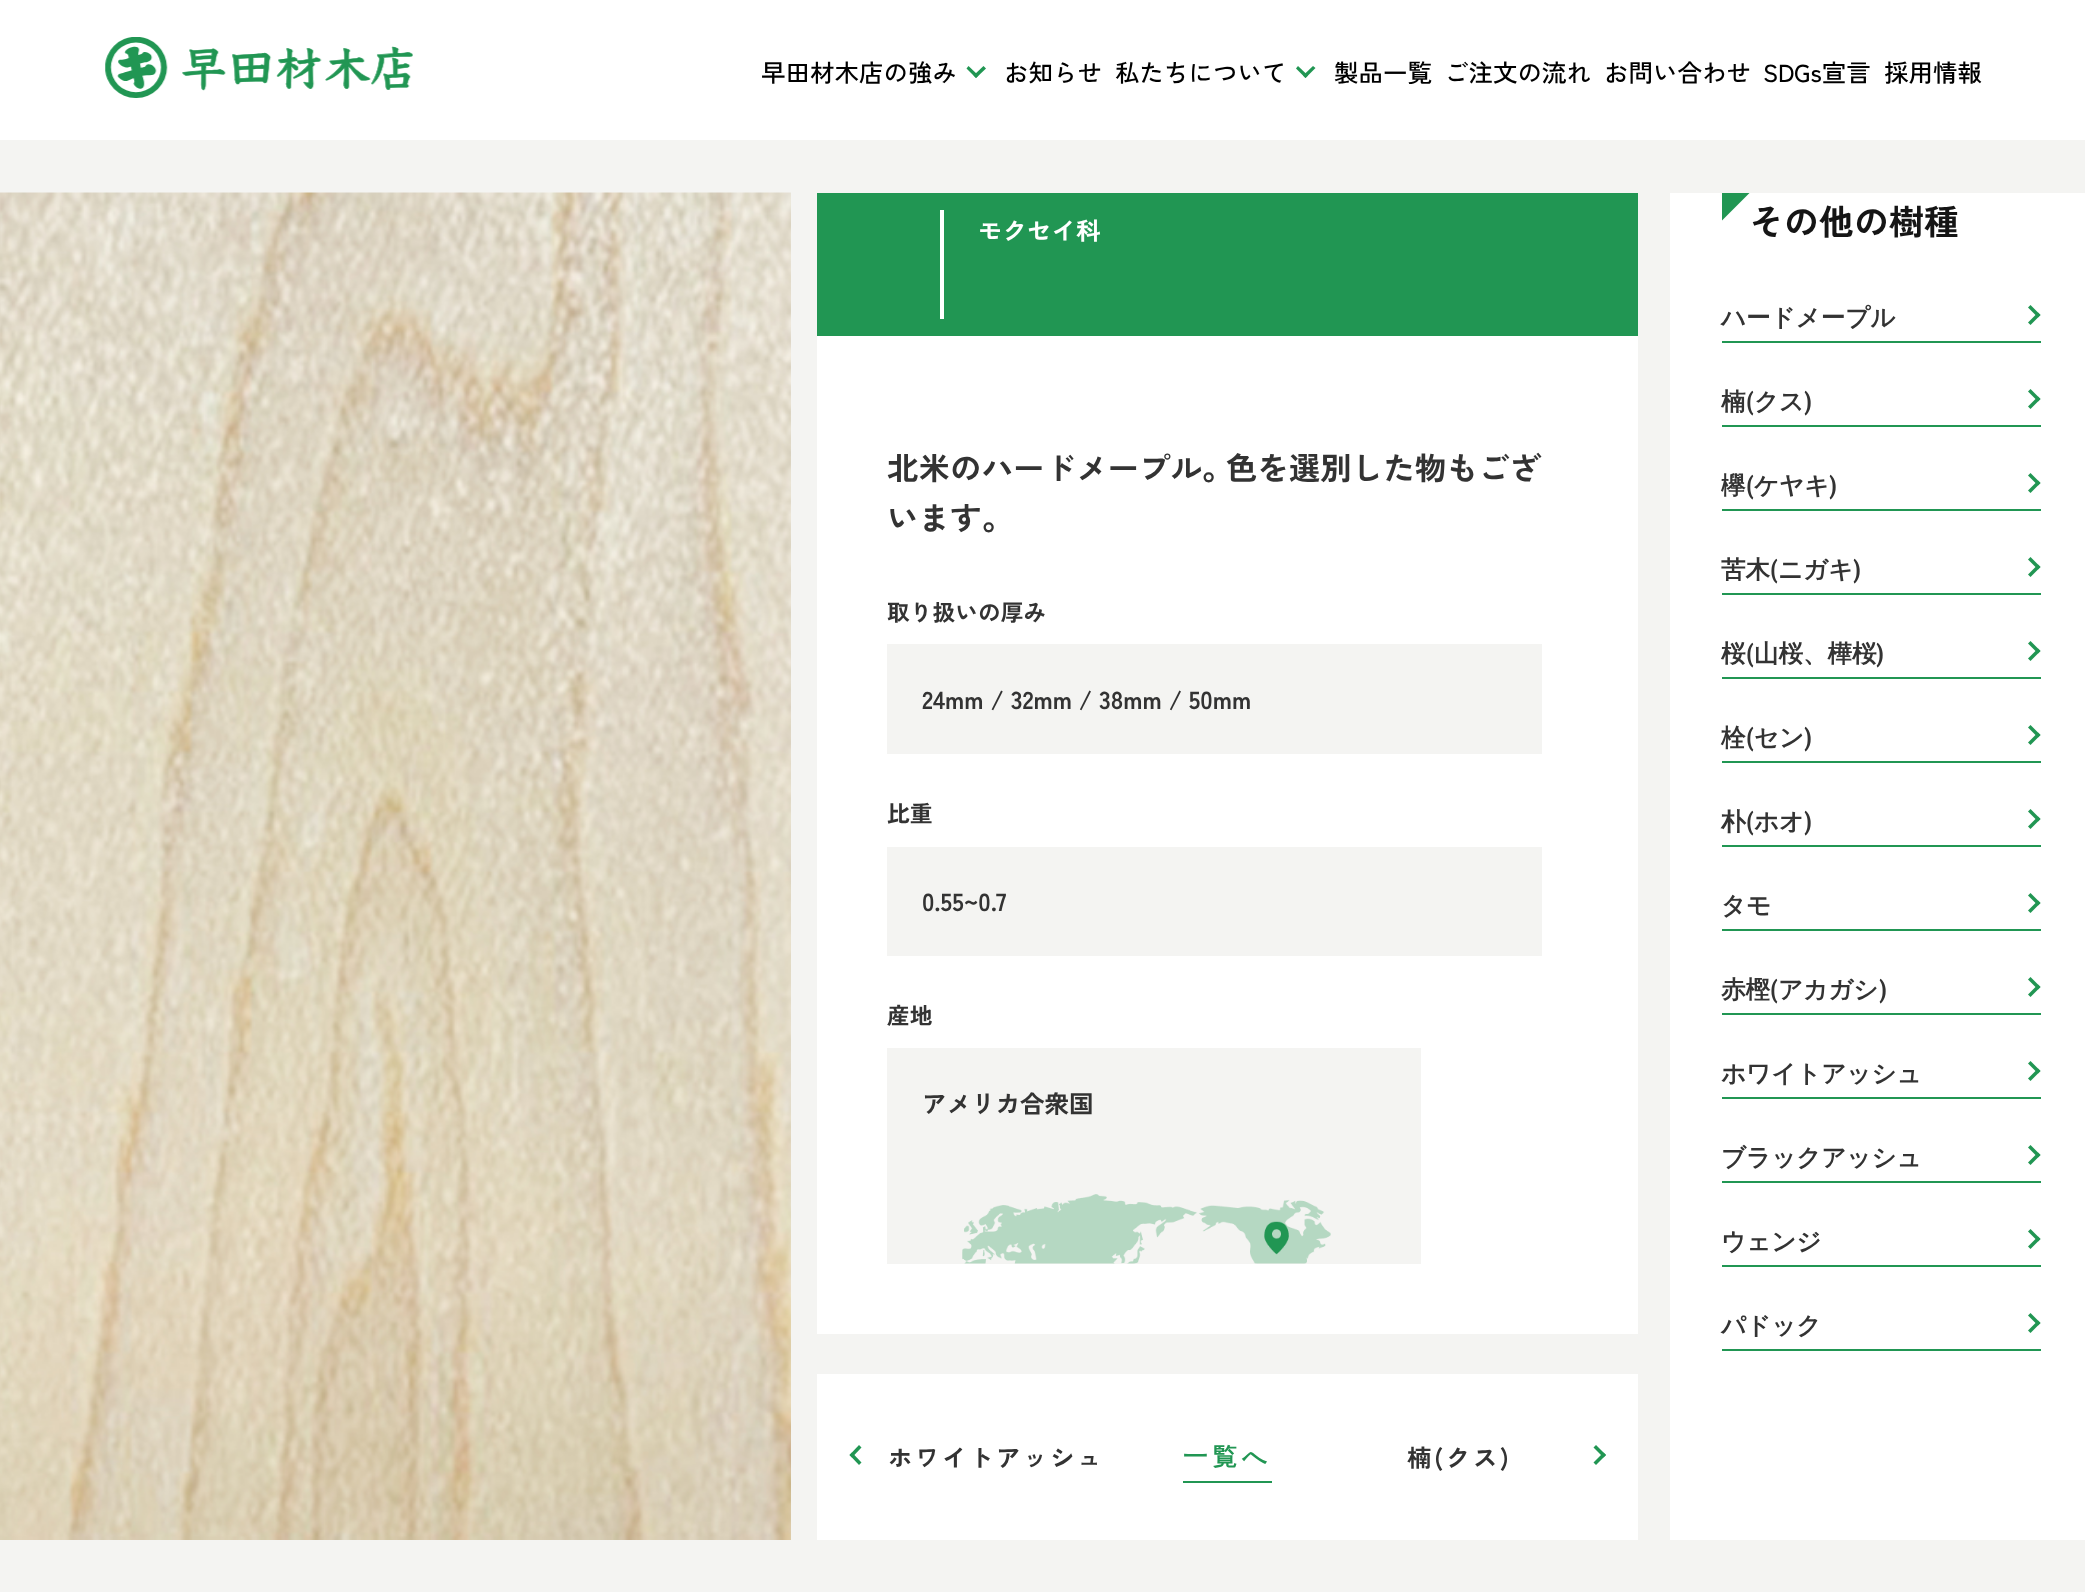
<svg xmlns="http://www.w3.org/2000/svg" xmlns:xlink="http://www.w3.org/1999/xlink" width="2085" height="1592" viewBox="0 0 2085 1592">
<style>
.cls-1{font:500 24.5px Zen Kaku Gothic New;fill:#000000}
.cls-2{font:bold 24.5px Zen Kaku Gothic New;fill:#ffffff}
.cls-3{font:bold 31.5px Zen Kaku Gothic New;fill:#333333}
.cls-4{font:bold 31.5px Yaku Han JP;fill:#333333}
.cls-5{font:bold 22.75px Zen Kaku Gothic New;fill:#333333}
.cls-6{font:bold 24.5px Zen Kaku Gothic New;fill:#333333}
.cls-7{font:bold 24.5px Zen Kaku Gothic New;letter-spacing:2.5px;fill:#333333}
.cls-8{font:bold 24.5px WenQuanYi Zen Hei;letter-spacing:5px;fill:#219653}
.cls-9{font:bold 35px Zen Kaku Gothic New;fill:#151515}
.cls-10{font:bold 24.5px WenQuanYi Zen Hei;fill:#333333}
.cls-11{font:bold 24.5px Roboto Condensed;fill:#333333}
</style>
<defs>
<clipPath id="clip1"><rect x="1670" y="193" width="371" height="1183"/></clipPath>
</defs>
<rect width="100%" height="100%" fill="#f4f4f2"/>
<rect fill="#ffffff" x="0" y="0" width="2085" height="140"/>
<image xlink:href="image0.png" x="105" y="37" width="308" height="61"/>
<path fill="#219653" d="M986 68.5L976 78L973.5 75.5L983.5 66Z"/>
<path fill="#219653" d="M978.5 75.5L976 78L966.5 68.5L968.5 66Z"/>
<path fill="#219653" d="M1315.5 68L1305.5 78L1303 75.5L1313 66Z"/>
<path fill="#219653" d="M1308 75.5L1305.5 78L1296 68.5L1298 66Z"/>
<image xlink:href="image1.png" x="0" y="192" width="791" height="1348"/>
<rect fill="#219653" x="817" y="193" width="821" height="143"/>
<rect fill="#ffffff" x="940" y="210" width="4" height="109"/>
<rect fill="#ffffff" x="817" y="336" width="821" height="998"/>
<rect fill="#f4f4f2" x="887" y="644" width="655" height="110"/>
<rect fill="#f4f4f2" x="887" y="847" width="655" height="109"/>
<rect fill="#f4f4f2" x="887" y="1048" width="534" height="216"/>
<image xlink:href="image2.png" x="962" y="1194" width="369" height="70"/>
<rect fill="#ffffff" x="817" y="1374" width="821" height="166"/>
<path fill="#219653" d="M859 1465L849.5 1455L852 1452.5L861.5 1462.5Z"/>
<path fill="#219653" d="M852 1457.5L849.5 1455L859 1445L861.5 1447.5Z"/>
<rect fill="#219653" x="1183" y="1481" width="89" height="2"/>
<path fill="#219653" d="M1596 1445L1606 1455L1603.5 1457.5L1593.5 1447.5Z"/>
<path fill="#219653" d="M1603.5 1452.5L1606 1455L1596 1465L1593.5 1462.5Z"/>
<rect fill="#ffffff" x="1670" y="193" width="415" height="1347"/>
<g clip-path="url(#clip1)">
<path fill="#219653" d="M1722 192.5H1750L1722 220.5Z"/>
</g>
<rect fill="#219653" x="1722" y="341" width="319" height="2"/>
<path fill="#219653" d="M2030.5 305L2040.5 315L2038 317.5L2028 307.5Z"/>
<path fill="#219653" d="M2038 312.5L2040.5 315L2030.5 325L2028 322.5Z"/>
<rect fill="#219653" x="1722" y="425" width="319" height="2"/>
<path fill="#219653" d="M2030.5 389L2040.5 399L2038 401.5L2028 391.5Z"/>
<path fill="#219653" d="M2038 396.5L2040.5 399L2030.5 409L2028 406.5Z"/>
<rect fill="#219653" x="1722" y="509" width="319" height="2"/>
<path fill="#219653" d="M2030.5 473L2040.5 483L2038 485.5L2028 475.5Z"/>
<path fill="#219653" d="M2038 480.5L2040.5 483L2030.5 493L2028 490.5Z"/>
<rect fill="#219653" x="1722" y="593" width="319" height="2"/>
<path fill="#219653" d="M2030.5 557L2040.5 567L2038 569.5L2028 559.5Z"/>
<path fill="#219653" d="M2038 564.5L2040.5 567L2030.5 577L2028 574.5Z"/>
<rect fill="#219653" x="1722" y="677" width="319" height="2"/>
<path fill="#219653" d="M2030.5 641L2040.5 651L2038 653.5L2028 643.5Z"/>
<path fill="#219653" d="M2038 648.5L2040.5 651L2030.5 661L2028 658.5Z"/>
<rect fill="#219653" x="1722" y="761" width="319" height="2"/>
<path fill="#219653" d="M2030.5 725L2040.5 735L2038 737.5L2028 727.5Z"/>
<path fill="#219653" d="M2038 732.5L2040.5 735L2030.5 745L2028 742.5Z"/>
<rect fill="#219653" x="1722" y="845" width="319" height="2"/>
<path fill="#219653" d="M2030.5 809L2040.5 819L2038 821.5L2028 811.5Z"/>
<path fill="#219653" d="M2038 816.5L2040.5 819L2030.5 829L2028 826.5Z"/>
<rect fill="#219653" x="1722" y="929" width="319" height="2"/>
<path fill="#219653" d="M2030.5 893L2040.5 903L2038 905.5L2028 895.5Z"/>
<path fill="#219653" d="M2038 900.5L2040.5 903L2030.5 913L2028 910.5Z"/>
<rect fill="#219653" x="1722" y="1013" width="319" height="2"/>
<path fill="#219653" d="M2030.5 977L2040.5 987L2038 989.5L2028 979.5Z"/>
<path fill="#219653" d="M2038 984.5L2040.5 987L2030.5 997L2028 994.5Z"/>
<rect fill="#219653" x="1722" y="1097" width="319" height="2"/>
<path fill="#219653" d="M2030.5 1061L2040.5 1071L2038 1073.5L2028 1063.5Z"/>
<path fill="#219653" d="M2038 1068.5L2040.5 1071L2030.5 1081L2028 1078.5Z"/>
<rect fill="#219653" x="1722" y="1181" width="319" height="2"/>
<path fill="#219653" d="M2030.5 1145L2040.5 1155L2038 1157.5L2028 1147.5Z"/>
<path fill="#219653" d="M2038 1152.5L2040.5 1155L2030.5 1165L2028 1162.5Z"/>
<rect fill="#219653" x="1722" y="1265" width="319" height="2"/>
<path fill="#219653" d="M2030.5 1229L2040.5 1239L2038 1241.5L2028 1231.5Z"/>
<path fill="#219653" d="M2038 1236.5L2040.5 1239L2030.5 1249L2028 1246.5Z"/>
<rect fill="#219653" x="1722" y="1349" width="319" height="2"/>
<path fill="#219653" d="M2030.5 1313L2040.5 1323L2038 1325.5L2028 1315.5Z"/>
<path fill="#219653" d="M2038 1320.5L2040.5 1323L2030.5 1333L2028 1330.5Z"/>
<text class="cls-1" x="761" y="82">早田材木店の強み</text>
<text class="cls-1" x="1004" y="82">お知らせ</text>
<text class="cls-1" x="1115" y="82">私たちについて</text>
<text class="cls-1" x="1334" y="82">製品一覧</text>
<text class="cls-1" x="1444" y="82">ご注文の流れ</text>
<text class="cls-1" x="1604" y="82">お問い合わせ</text>
<text class="cls-1" x="1763" y="82">SDGs宣言</text>
<text class="cls-1" x="1884" y="82">採用情報</text>
<text class="cls-2" x="978" y="240">モクセイ科</text>
<text class="cls-3" x="887" y="480">北米のハードメープル</text>
<text class="cls-4" x="1202" y="480">。</text>
<text class="cls-3" x="1226" y="480">色を選別した物もござ</text>
<text class="cls-3" x="887" y="530">います</text>
<text class="cls-4" x="982" y="530">。</text>
<text class="cls-5" x="887" y="621">取り扱いの厚み</text>
<text class="cls-6" x="922" y="709">24mm / 32mm / 38mm / 50mm</text>
<text class="cls-5" x="887" y="822">比重</text>
<text class="cls-6" x="922" y="911">0.55~0.7</text>
<text class="cls-5" x="887" y="1024">産地</text>
<text class="cls-6" x="922" y="1113">アメリカ合衆国</text>
<text class="cls-7" x="888" y="1467">ホワイトアッシュ</text>
<text class="cls-8" x="1183" y="1465">一覧へ</text>
<text class="cls-7" x="1407" y="1467">楠(クス)</text>
<text class="cls-9" x="1749" y="235">その他の樹種</text>
<text class="cls-10" x="1721" y="326">ハードメープル</text>
<text class="cls-10" x="1721" y="410">楠</text>
<text class="cls-11" x="1746" y="410">(</text>
<text class="cls-10" x="1754" y="410">クス</text>
<text class="cls-11" x="1804" y="410">)</text>
<text class="cls-10" x="1721" y="494">欅</text>
<text class="cls-11" x="1746" y="494">(</text>
<text class="cls-10" x="1754" y="494">ケヤキ</text>
<text class="cls-11" x="1829" y="494">)</text>
<text class="cls-10" x="1721" y="578">苦木</text>
<text class="cls-11" x="1770" y="578">(</text>
<text class="cls-10" x="1778" y="578">ニガキ</text>
<text class="cls-11" x="1853" y="578">)</text>
<text class="cls-10" x="1721" y="662">桜</text>
<text class="cls-11" x="1746" y="662">(</text>
<text class="cls-10" x="1754" y="662">山桜、樺桜</text>
<text class="cls-11" x="1876" y="662">)</text>
<text class="cls-10" x="1721" y="746">栓</text>
<text class="cls-11" x="1746" y="746">(</text>
<text class="cls-10" x="1754" y="746">セン</text>
<text class="cls-11" x="1804" y="746">)</text>
<text class="cls-10" x="1721" y="830">朴</text>
<text class="cls-11" x="1746" y="830">(</text>
<text class="cls-10" x="1754" y="830">ホオ</text>
<text class="cls-11" x="1804" y="830">)</text>
<text class="cls-10" x="1721" y="914">タモ</text>
<text class="cls-10" x="1721" y="998">赤樫</text>
<text class="cls-11" x="1770" y="998">(</text>
<text class="cls-10" x="1778" y="998">アカガシ</text>
<text class="cls-11" x="1879" y="998">)</text>
<text class="cls-10" x="1721" y="1082">ホワイトアッシュ</text>
<text class="cls-10" x="1721" y="1166">ブラックアッシュ</text>
<text class="cls-10" x="1721" y="1250">ウェンジ</text>
<text class="cls-10" x="1721" y="1334">パドック</text>
</svg>
